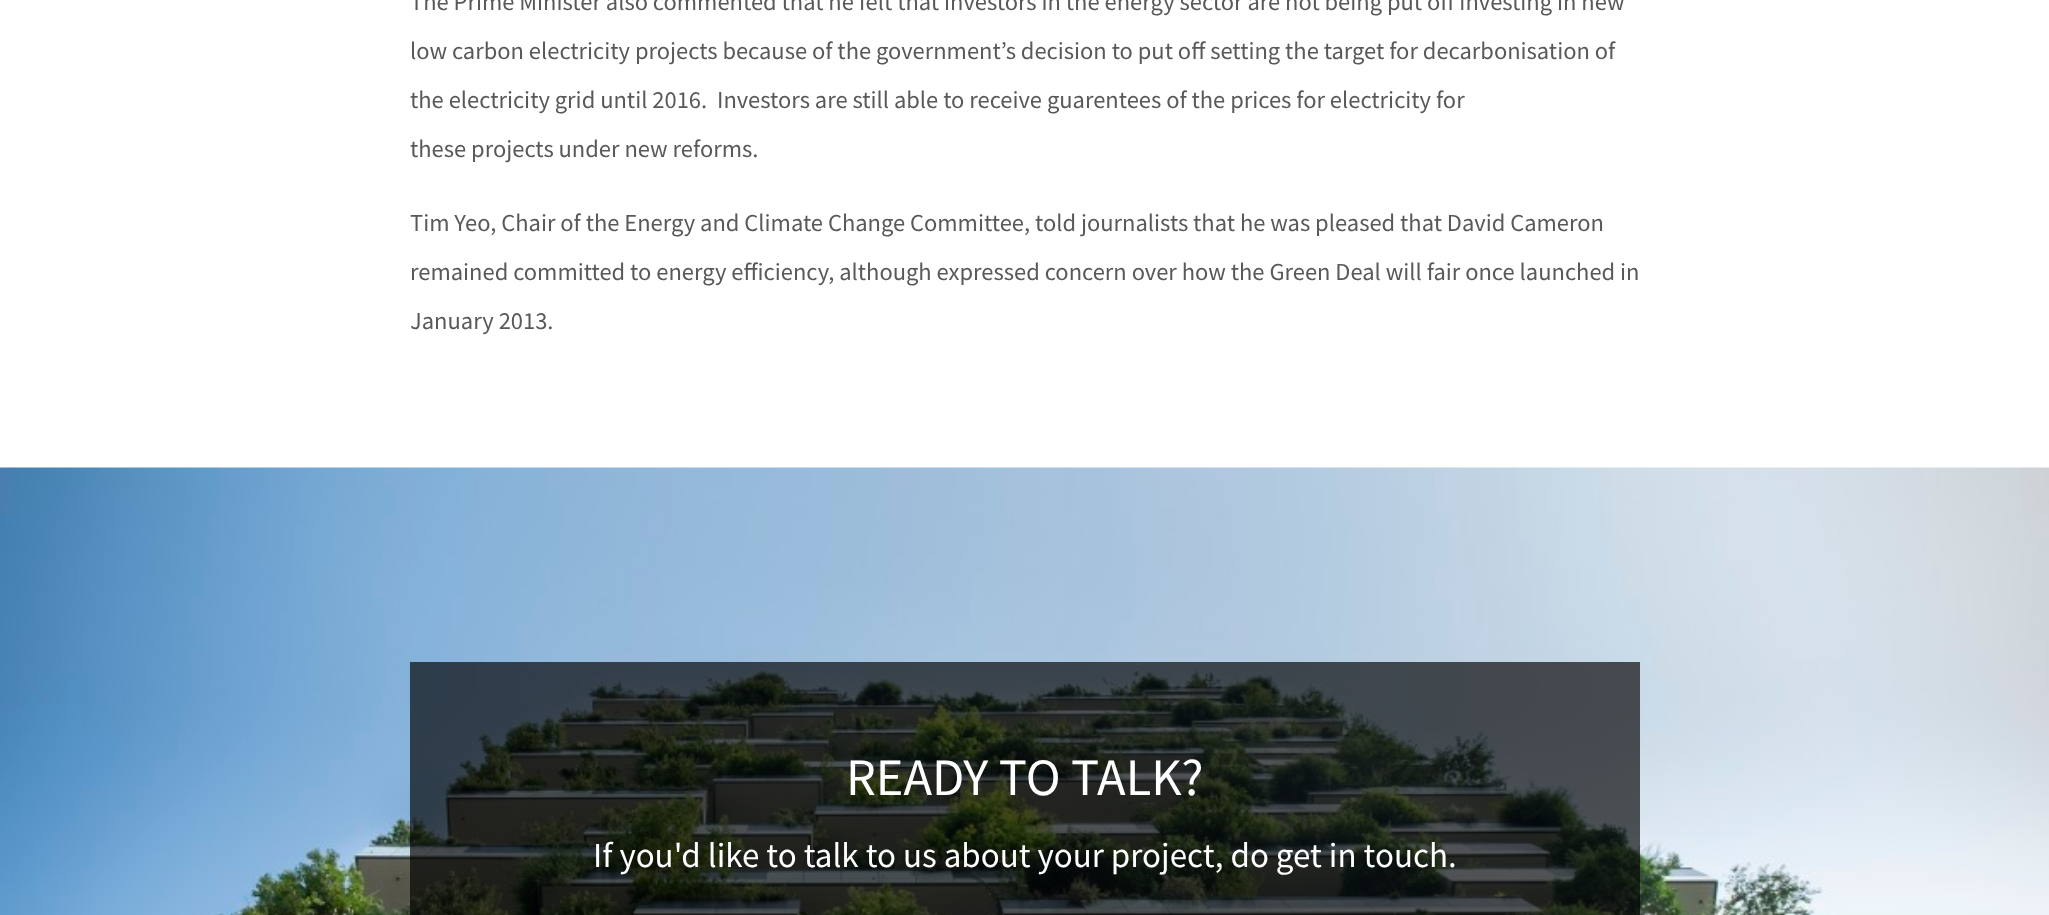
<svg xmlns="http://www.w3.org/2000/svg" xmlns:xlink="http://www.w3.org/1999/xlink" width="2049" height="915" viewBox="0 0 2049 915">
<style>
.cls-1{font:24.5px Source Sans Pro;fill:#58595b}
.cls-2{font:52.5px Source Sans Pro;fill:#ffffff}
.cls-3{font:35px Source Sans Pro;fill:#ffffff}
</style>
<rect width="100%" height="100%" fill="#ffffff"/>
<image xlink:href="image0.png" x="0" y="467" width="2049" height="448"/>
<rect fill="#000000" fill-opacity="0.66" x="410" y="662" width="1230" height="253"/>
<text class="cls-1" x="410" y="10">The Prime Minister also commented that he felt that investors in the energy sector are not being put off investing in new</text>
<text class="cls-1" x="410" y="59">low carbon electricity projects because of the government’s decision to put off setting the target for decarbonisation of</text>
<text class="cls-1" xml:space="preserve" x="410" y="108">the electricity grid until 2016.  Investors are still able to receive guarentees of the prices for electricity for</text>
<text class="cls-1" x="410" y="157">these projects under new reforms.</text>
<text class="cls-1" x="410" y="231">Tim Yeo, Chair of the Energy and Climate Change Committee, told journalists that he was pleased that David Cameron</text>
<text class="cls-1" x="410" y="280">remained committed to energy efficiency, although expressed concern over how the Green Deal will fair once launched in</text>
<text class="cls-1" x="410" y="329">January 2013.</text>
<text class="cls-2" x="846" y="795">READY TO TALK?</text>
<text class="cls-3" x="593" y="867">If you'd like to talk to us about your project, do get in touch.</text>
</svg>
